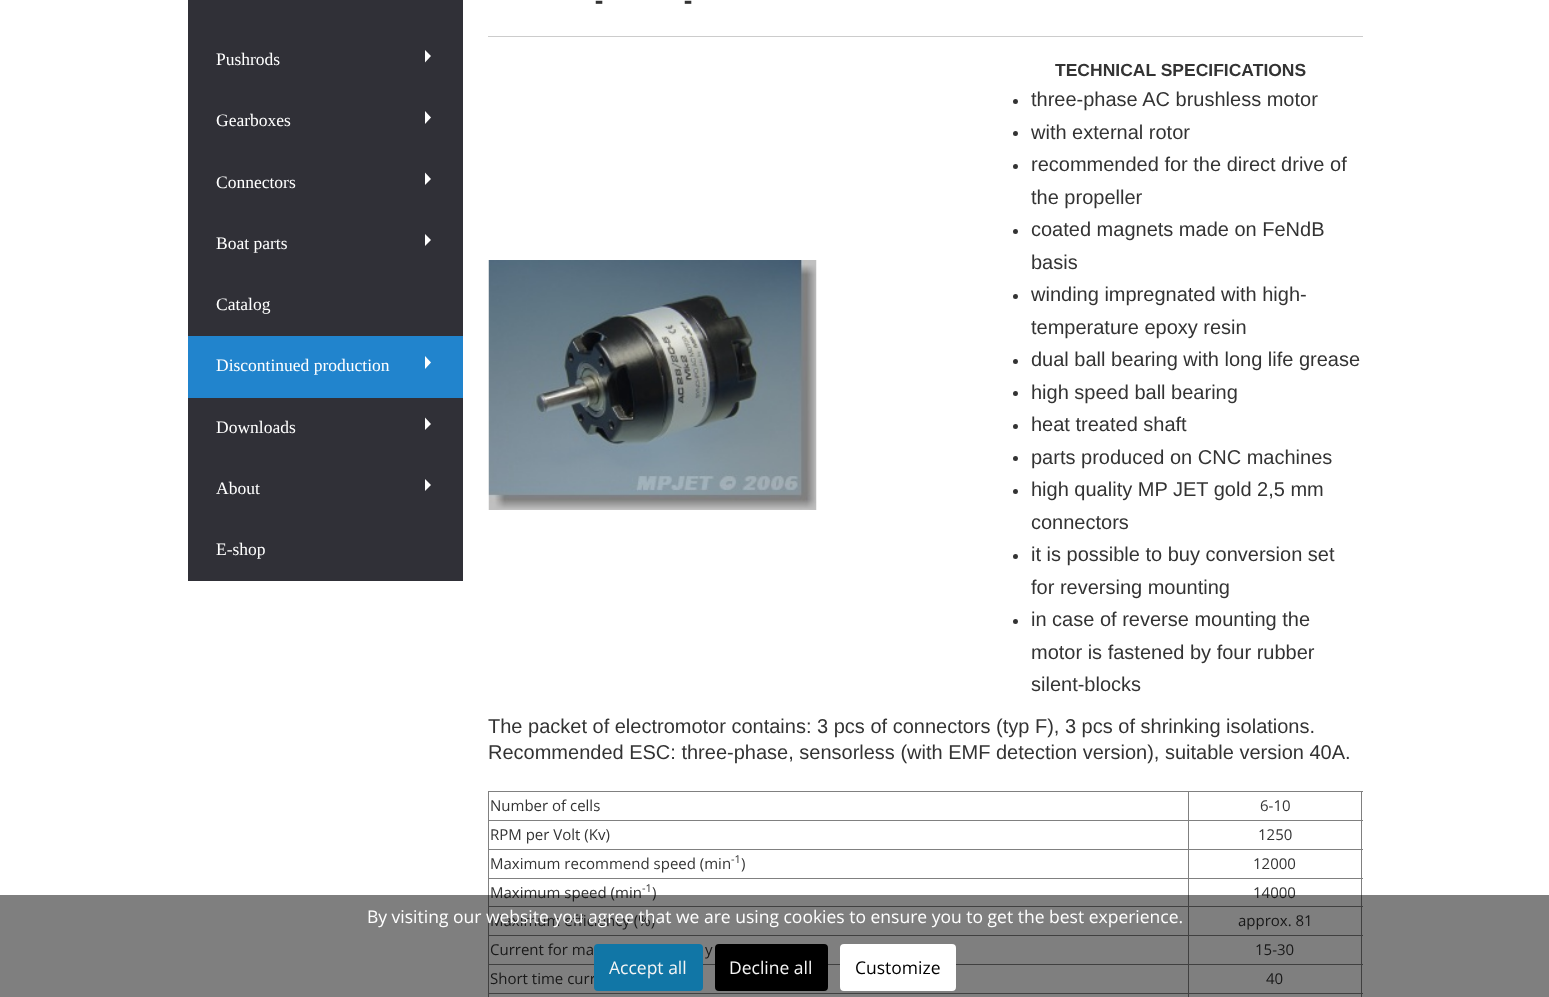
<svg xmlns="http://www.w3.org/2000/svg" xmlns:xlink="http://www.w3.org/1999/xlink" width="1549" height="997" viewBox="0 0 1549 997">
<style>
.cls-1{font:17.5px Liberation Serif;fill:#ffffff}
.cls-2{font:bold 25px Open Sans;fill:#333333}
.cls-3{font:bold 17.5px Liberation Sans;fill:#333333}
.cls-4{font:20px Liberation Sans;fill:#333333}
.cls-5{font:15px Open Sans;fill:#333333}
.cls-6{font:11px Open Sans;fill:#333333}
.cls-7{font:17.5px Open Sans;fill:#ffffff}
.cls-8{font:17.5px Open Sans;fill:#f5f5f5}
.cls-9{font:17.5px Open Sans;fill:#000000}
</style>
<rect width="100%" height="100%" fill="#ffffff"/>
<rect fill="#303037" x="188" y="0" width="275" height="581"/>
<path fill="#ffffff" d="M425 62.5V50L431 56Z"/>
<path fill="#ffffff" d="M425 124V111L431 117.5Z"/>
<path fill="#ffffff" d="M425 185V172.5L431 179Z"/>
<path fill="#ffffff" d="M425 246V234L431 240Z"/>
<rect fill="#2184cd" x="188" y="336" width="275" height="62"/>
<path fill="#ffffff" d="M425 369V356L431 362.5Z"/>
<path fill="#ffffff" d="M425 430V417.5L431 424Z"/>
<path fill="#ffffff" d="M425 491V479L431 485Z"/>
<rect fill="#cccccc" x="488" y="36" width="875" height="1"/>
<image xlink:href="image0.png" x="488" y="260" width="329" height="250"/>
<circle fill="#333333" cx="1015.5" cy="101.5" r="2.5"/>
<circle fill="#333333" cx="1015.5" cy="133.5" r="2.5"/>
<circle fill="#333333" cx="1015.5" cy="166.5" r="2.5"/>
<circle fill="#333333" cx="1015.5" cy="231.5" r="2.5"/>
<circle fill="#333333" cx="1015.5" cy="296.5" r="2.5"/>
<circle fill="#333333" cx="1015.5" cy="361.5" r="2.5"/>
<circle fill="#333333" cx="1015.5" cy="393.5" r="2.5"/>
<circle fill="#333333" cx="1015.5" cy="426.5" r="2.5"/>
<circle fill="#333333" cx="1015.5" cy="458.5" r="2.5"/>
<circle fill="#333333" cx="1015.5" cy="491.5" r="2.5"/>
<circle fill="#333333" cx="1015.5" cy="556.5" r="2.5"/>
<circle fill="#333333" cx="1015.5" cy="621.5" r="2.5"/>
<rect fill="#808080" x="488" y="791" width="875" height="1"/>
<rect fill="#808080" x="1361" y="791" width="1" height="206"/>
<rect fill="#808080" x="488" y="791" width="1" height="206"/>
<rect fill="#808080" x="1188" y="820" width="175" height="1"/>
<rect fill="#808080" x="1188" y="849" width="175" height="1"/>
<rect fill="#808080" x="1188" y="878" width="175" height="1"/>
<rect fill="#808080" x="1188" y="906" width="175" height="1"/>
<rect fill="#808080" x="1188" y="935" width="175" height="1"/>
<rect fill="#808080" x="1188" y="964" width="175" height="1"/>
<rect fill="#808080" x="1188" y="993" width="175" height="1"/>
<rect fill="#808080" x="1188" y="993" width="1" height="4"/>
<rect fill="#808080" x="488" y="993" width="701" height="1"/>
<rect fill="#808080" x="1188" y="964" width="1" height="30"/>
<rect fill="#808080" x="488" y="964" width="701" height="1"/>
<rect fill="#808080" x="1188" y="935" width="1" height="30"/>
<rect fill="#808080" x="488" y="935" width="701" height="1"/>
<rect fill="#808080" x="1188" y="906" width="1" height="30"/>
<rect fill="#808080" x="488" y="906" width="701" height="1"/>
<rect fill="#808080" x="1188" y="878" width="1" height="30"/>
<rect fill="#808080" x="488" y="878" width="701" height="1"/>
<rect fill="#808080" x="1188" y="849" width="1" height="30"/>
<rect fill="#808080" x="488" y="849" width="701" height="1"/>
<rect fill="#808080" x="1188" y="820" width="1" height="30"/>
<rect fill="#808080" x="488" y="820" width="701" height="1"/>
<rect fill="#808080" x="1188" y="791" width="1" height="30"/>
<text class="cls-1" x="216" y="65">Pushrods</text>
<text class="cls-1" x="216" y="126">Gearboxes</text>
<text class="cls-1" x="216" y="188">Connectors</text>
<text class="cls-1" x="216" y="249">Boat parts</text>
<text class="cls-1" x="216" y="310">Catalog</text>
<text class="cls-1" x="216" y="371">Discontinued production</text>
<text class="cls-1" x="216" y="433">Downloads</text>
<text class="cls-1" x="216" y="494">About</text>
<text class="cls-1" x="216" y="555">E-shop</text>
<text class="cls-2" x="595" y="9">-</text>
<text class="cls-2" x="684" y="9">-</text>
<text class="cls-3" x="1055" y="76">TECHNICAL SPECIFICATIONS</text>
<text class="cls-4"><tspan x="1031" y="106">three-phase AC brushless motor</tspan><tspan x="1031" y="139">with external rotor</tspan><tspan x="1031" y="171">recommended for the direct drive of</tspan><tspan x="1031" y="204">the propeller</tspan><tspan x="1031" y="236">coated magnets made on FeNdB</tspan><tspan x="1031" y="269">basis</tspan><tspan x="1031" y="301">winding impregnated with high-</tspan><tspan x="1031" y="334">temperature epoxy resin</tspan><tspan x="1031" y="366">dual ball bearing with long life grease</tspan><tspan x="1031" y="399">high speed ball bearing</tspan><tspan x="1031" y="431">heat treated shaft</tspan><tspan x="1031" y="464">parts produced on CNC machines</tspan><tspan x="1031" y="496">high quality MP JET gold 2,5 mm</tspan><tspan x="1031" y="529">connectors</tspan><tspan x="1031" y="561">it is possible to buy conversion set</tspan><tspan x="1031" y="594">for reversing mounting</tspan><tspan x="1031" y="626">in case of reverse mounting the</tspan><tspan x="1031" y="659">motor is fastened by four rubber</tspan><tspan x="1031" y="691">silent-blocks</tspan></text>
<text class="cls-4"><tspan x="488" y="733">The packet of electromotor contains: 3 pcs of connectors (typ F), 3 pcs of shrinking isolations.</tspan><tspan x="488" y="759">Recommended ESC: three-phase, sensorless (with EMF detection version), suitable version 40A.</tspan></text>
<text class="cls-5" x="490" y="811">Number of cells</text>
<text class="cls-5" x="1260" y="811">6-10</text>
<text class="cls-5" x="490" y="840">RPM per Volt (Kv)</text>
<text class="cls-5" x="1258" y="840">1250</text>
<text class="cls-5" x="490" y="869">Maximum recommend speed (min</text>
<text class="cls-6" x="731" y="863">-1</text>
<text class="cls-5" x="741" y="869">)</text>
<text class="cls-5" x="1253" y="869">12000</text>
<text class="cls-5" x="490" y="898">Maximum speed (min</text>
<text class="cls-6" x="642" y="892">-1</text>
<text class="cls-5" x="652" y="898">)</text>
<text class="cls-5" x="1253" y="898">14000</text>
<text class="cls-5" x="490" y="926">Maximum efficiency (%)</text>
<text class="cls-5" x="1238" y="926">approx. 81</text>
<text class="cls-5" x="490" y="955">Current for ma</text>
<text class="cls-5" x="705" y="955">y</text>
<text class="cls-5" x="1255" y="955">15-30</text>
<text class="cls-5" x="490" y="984">Short time curr</text>
<text class="cls-5" x="1266" y="984">40</text>
<rect fill="#000000" fill-opacity="0.5" x="0" y="895" width="1549" height="102"/>
<text class="cls-7" x="367" y="923">By visiting our website you agree that we are using cookies to ensure you to get the best experience.</text>
<rect fill="#1176a6" stroke="#1176a6" stroke-width="3" x="595.5" y="945.5" width="106" height="44" rx="2.5"/>
<text class="cls-8" x="609" y="974">Accept all</text>
<rect fill="#000000" stroke="#000000" stroke-width="3" x="716.5" y="945.5" width="110" height="44" rx="2.5"/>
<text class="cls-8" x="729" y="974">Decline all</text>
<rect fill="#ffffff" stroke="#ffffff" stroke-width="3" x="841.5" y="945.5" width="113" height="44" rx="2.5"/>
<text class="cls-9" x="855" y="974">Customize</text>
</svg>
